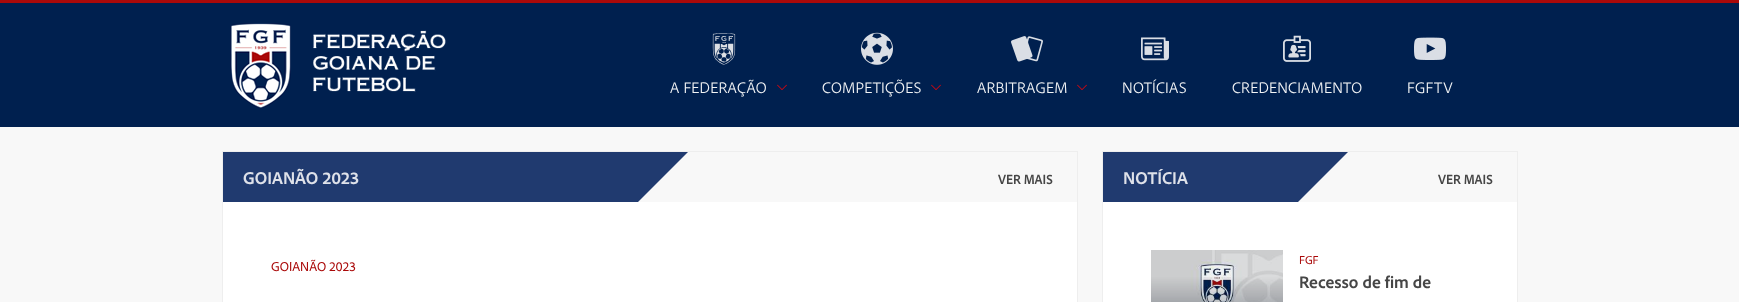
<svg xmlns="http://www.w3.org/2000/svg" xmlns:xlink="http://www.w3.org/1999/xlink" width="1739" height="302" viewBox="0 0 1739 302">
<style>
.cls-1{font:300 16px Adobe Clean;letter-spacing:0.25px;fill:#f2f4f6}
.cls-2{font:bold 18px Adobe Clean;fill:#dee1e9}
.cls-3{font:bold 14px 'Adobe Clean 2';fill:#464646}
.cls-4{font:13.5px Adobe Clean;fill:#aa0909}
.cls-5{font:12px Adobe Clean;fill:#aa0909}
.cls-6{font:bold 17.5px Adobe Clean;fill:#464646}
</style>
<rect width="100%" height="100%" fill="#f8f8f8"/>
<rect fill="#00204f" x="0" y="3" width="1739" height="124"/>
<rect fill="#aa0909" x="0" y="0" width="1739" height="3"/>
<image xlink:href="image0.png" x="230" y="23" width="216" height="86"/>
<image xlink:href="image1.png" x="712" y="33" width="24" height="32"/>
<image xlink:href="image2.png" x="777" y="84" width="10" height="6"/>
<image xlink:href="image3.png" x="861" y="32" width="32" height="33"/>
<image xlink:href="image2.png" x="931" y="84" width="10" height="6"/>
<image xlink:href="image4.png" x="1011" y="36" width="32" height="26"/>
<image xlink:href="image2.png" x="1077" y="84" width="10" height="6"/>
<image xlink:href="image5.png" x="1141" y="37" width="28" height="24"/>
<image xlink:href="image6.png" x="1283" y="35" width="28" height="27"/>
<image xlink:href="image7.png" x="1414" y="37" width="32" height="23"/>
<rect fill="#ffffff" x="223" y="202" width="854" height="100"/>
<rect fill="none" stroke="#eeeeee" x="222.5" y="151.5" width="855" height="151"/>
<rect fill="#203a6f" x="223" y="152" width="415" height="50"/>
<path fill="#203a6f" d="M638 152H688L638 202Z"/>
<rect fill="#ffffff" x="1103" y="202" width="414" height="100"/>
<rect fill="none" stroke="#eeeeee" x="1102.5" y="151.5" width="415" height="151"/>
<rect fill="#203a6f" x="1103" y="152" width="195" height="50"/>
<path fill="#203a6f" d="M1298 152H1348L1298 202Z"/>
<image xlink:href="image8.png" x="1151" y="250" width="132" height="52"/>
<text class="cls-1" x="670" y="93">A FEDERAÇÃO</text>
<text class="cls-1" x="822" y="93">COMPETIÇÕES</text>
<text class="cls-1" x="977" y="93">ARBITRAGEM</text>
<text class="cls-1" x="1122" y="93">NOTÍCIAS</text>
<text class="cls-1" x="1232" y="93">CREDENCIAMENTO</text>
<text class="cls-1" x="1407" y="93">FGFTV</text>
<text class="cls-2" x="243" y="184">GOIANÃO 2023</text>
<text class="cls-3" x="998" y="184">VER MAIS</text>
<text class="cls-4" x="271" y="271">GOIANÃO 2023</text>
<text class="cls-2" x="1123" y="184">NOTÍCIA</text>
<text class="cls-3" x="1438" y="184">VER MAIS</text>
<text class="cls-5" x="1299" y="264">FGF</text>
<text class="cls-6" x="1299" y="288">Recesso de fim de</text>
</svg>
